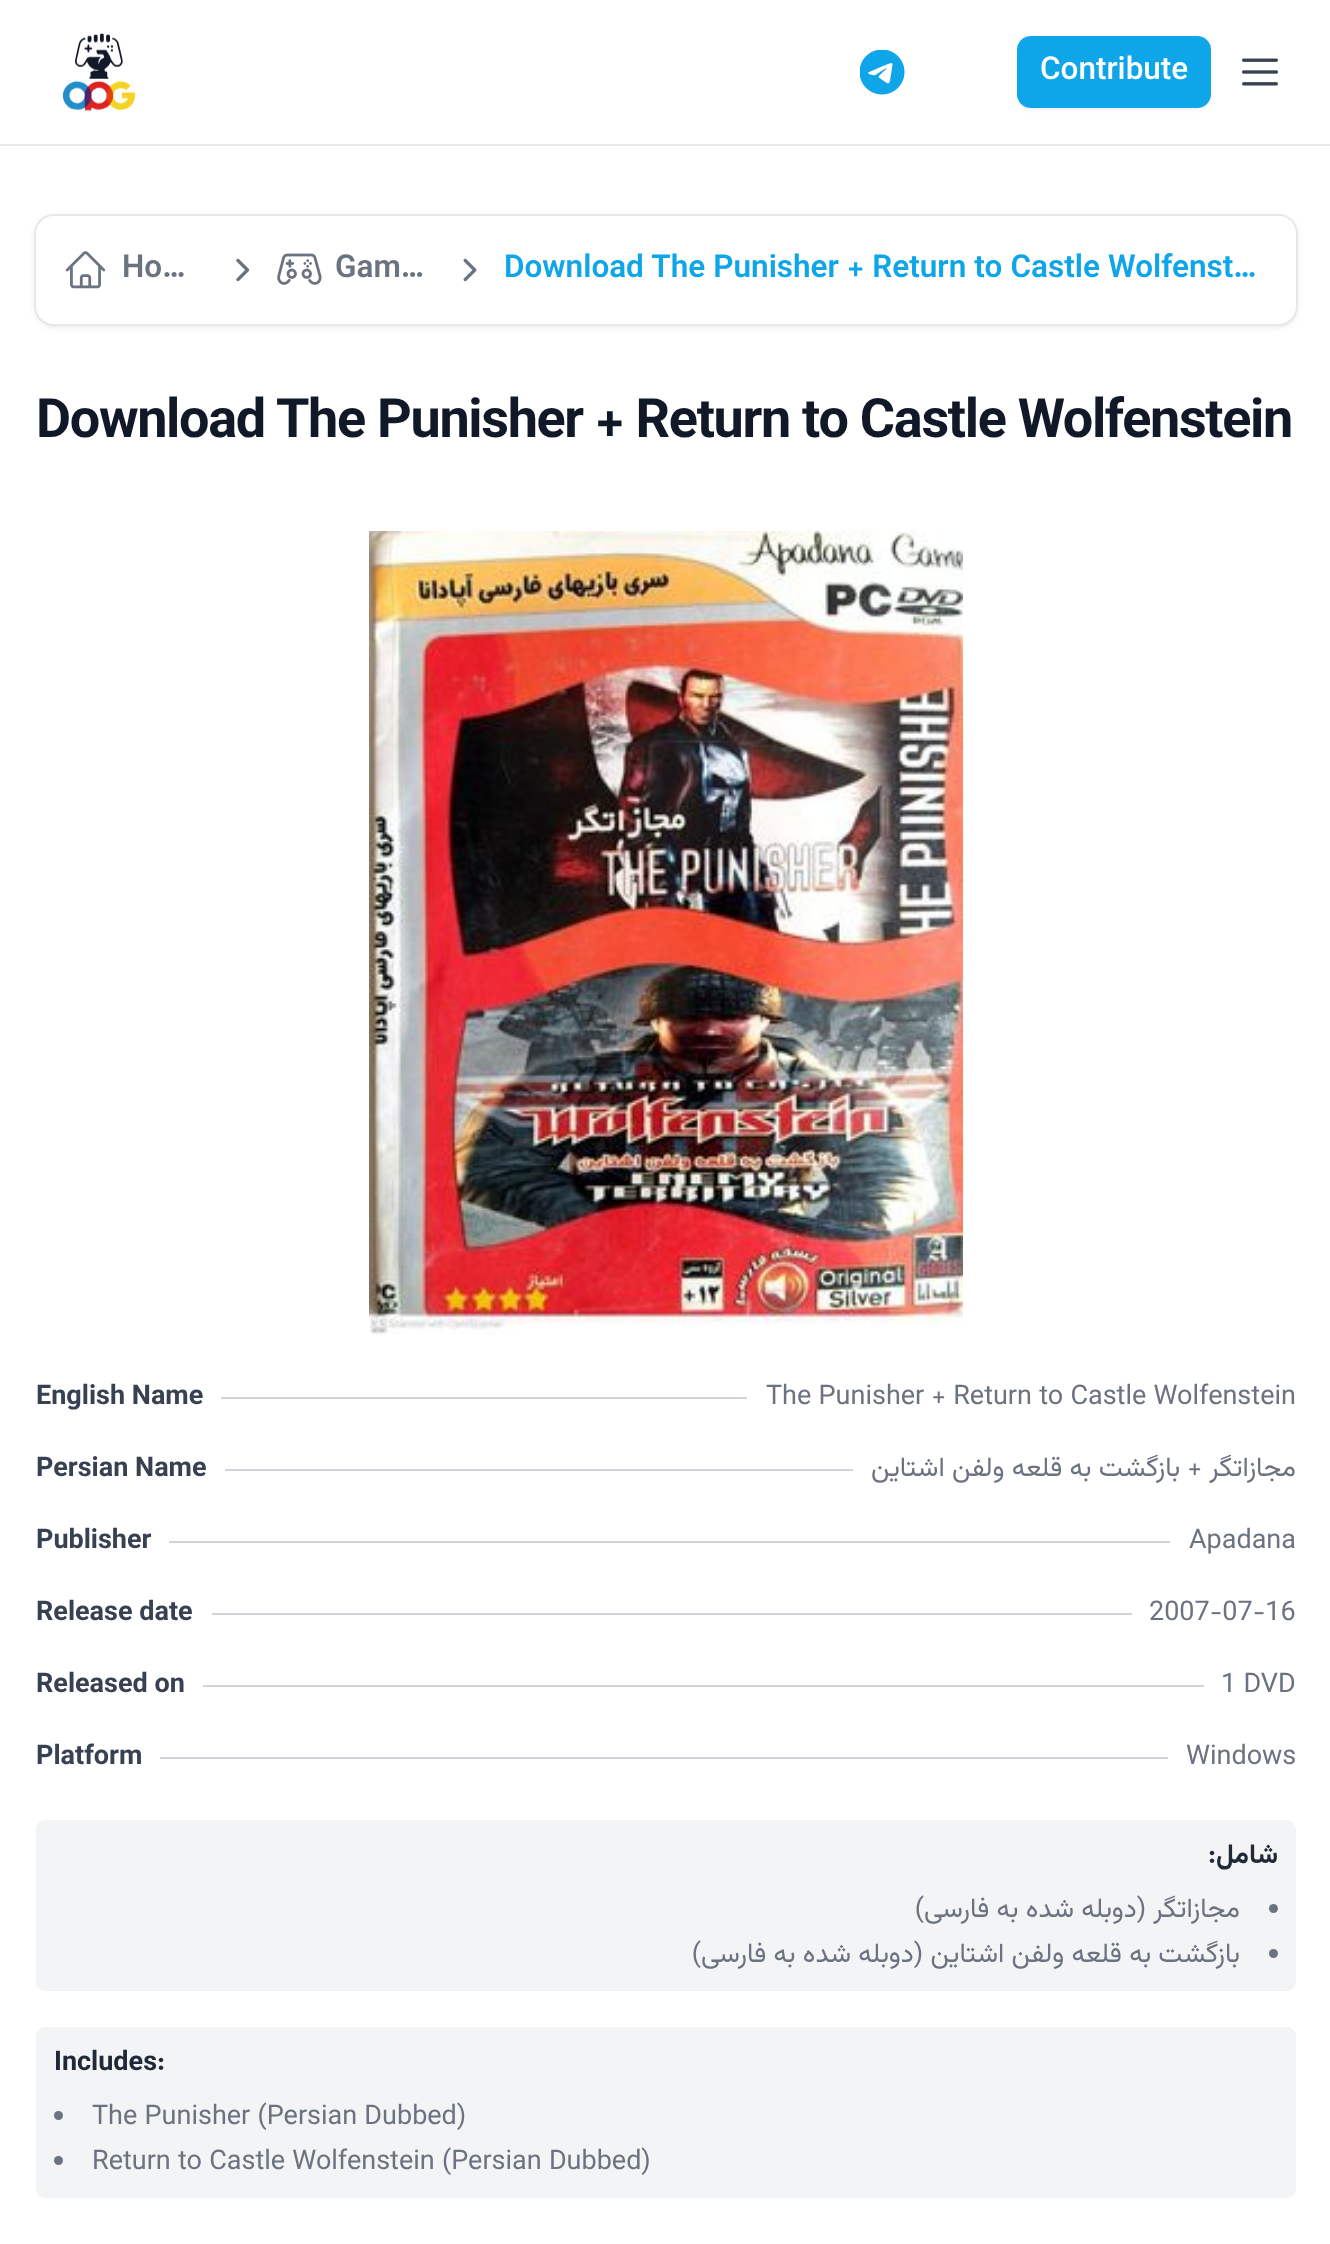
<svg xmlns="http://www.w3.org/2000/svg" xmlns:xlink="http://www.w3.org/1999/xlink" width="1330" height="2244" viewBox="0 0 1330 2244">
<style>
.cls-1{font:500 31.5px Vazirmatn;fill:#ffffff}
.cls-2{font:600 31.5px Vazirmatn;fill:#6b7280}
.cls-3{font:600 31.5px Vazirmatn;fill:#0ea5e9}
.cls-4{font:bold 54px Vazirmatn;letter-spacing:-1.35px;fill:#111827}
.cls-5{font:bold 27px Vazirmatn;fill:#374151}
.cls-6{font:27px Vazirmatn;fill:#6b7280}
.cls-7{font:27px Vazirmatn;direction:rtl;fill:#6b7280}
.cls-8{font:bold 27px Vazirmatn;direction:rtl;fill:#1f2937}
.cls-9{font:bold 27px Vazirmatn;fill:#1f2937}
</style>
<rect width="100%" height="100%" fill="#ffffff"/>
<rect fill="#e5e7eb" x="0" y="144" width="1330" height="2"/>
<image xlink:href="image0.png" x="63" y="33" width="72" height="78"/>
<image xlink:href="image1.png" x="860" y="50" width="45" height="45"/>
<rect fill="#000000" fill-opacity="0.05" filter="blur(2px)" x="1017" y="38" width="194" height="72" rx="14"/>
<rect fill="#0ea5e9" x="1017" y="36" width="194" height="72" rx="14"/>
<image xlink:href="image2.png" x="1242" y="58" width="36" height="28"/>
<rect fill="#000000" fill-opacity="0.1" filter="blur(2px)" x="38" y="221" width="1256" height="103" rx="16"/>
<rect fill="#000000" fill-opacity="0.1" filter="blur(3.5px)" x="36" y="218" width="1260" height="108" rx="18"/>
<rect fill="none" stroke="#e5e7eb" stroke-width="2" x="35" y="215" width="1262" height="110" rx="19"/>
<rect fill="#ffffff" x="36" y="216" width="1260" height="108" rx="18"/>
<image xlink:href="image3.png" x="65" y="251" width="41" height="38"/>
<image xlink:href="image4.png" x="236" y="258" width="14" height="24"/>
<image xlink:href="image5.png" x="277" y="253" width="45" height="32"/>
<image xlink:href="image6.png" x="463" y="258" width="14" height="24"/>
<image xlink:href="image7.png" x="369" y="531" width="594" height="804"/>
<rect fill="#d1d5db" x="221" y="1397" width="526" height="2"/>
<rect fill="#d1d5db" x="225" y="1469" width="628" height="2"/>
<rect fill="#d1d5db" x="169" y="1541" width="1001" height="2"/>
<rect fill="#d1d5db" x="212" y="1613" width="920" height="2"/>
<rect fill="#d1d5db" x="203" y="1685" width="1001" height="2"/>
<rect fill="#d1d5db" x="160" y="1757" width="1008" height="2"/>
<rect fill="#f3f4f6" x="36" y="1820" width="1260" height="171" rx="9"/>
<circle fill="#6b7280" cx="1273.5" cy="1908.5" r="4.5"/>
<circle fill="#6b7280" cx="1273.5" cy="1953.5" r="4.5"/>
<rect fill="#f3f4f6" x="36" y="2027" width="1260" height="171" rx="9"/>
<circle fill="#6b7280" cx="58.5" cy="2115.5" r="4.5"/>
<circle fill="#6b7280" cx="58.5" cy="2160.5" r="4.5"/>
<text class="cls-1" x="1040" y="79">Contribute</text>
<text class="cls-2" x="122" y="277">Ho…</text>
<text class="cls-2" x="335" y="277">Gam…</text>
<text class="cls-3" x="504" y="277">Download The Punisher + Return to Castle Wolfenst…</text>
<text class="cls-4" x="36" y="437">Download The Punisher + Return to Castle Wolfenstein</text>
<text class="cls-5" x="36" y="1404">English Name</text>
<text class="cls-6" x="766" y="1404">The Punisher + Return to Castle Wolfenstein</text>
<text class="cls-5" x="36" y="1476">Persian Name</text>
<text class="cls-7" x="1296" y="1476">مجازاتگر + بازگشت به قلعه ولفن اشتاین</text>
<text class="cls-5" x="36" y="1548">Publisher</text>
<text class="cls-6" x="1189" y="1548">Apadana</text>
<text class="cls-5" x="36" y="1620">Release date</text>
<text class="cls-6" x="1149" y="1620">2007-07-16</text>
<text class="cls-5" x="36" y="1692">Released on</text>
<text class="cls-6" x="1221" y="1692">1 DVD</text>
<text class="cls-5" x="36" y="1764">Platform</text>
<text class="cls-6" x="1186" y="1764">Windows</text>
<text class="cls-8" x="1278" y="1863">شامل:</text>
<text class="cls-7" x="1146" y="1917">(دوبله شده به فارسی)</text>
<text class="cls-7" x="1240" y="1917">مجازاتگر</text>
<text class="cls-7" x="923" y="1962">(دوبله شده به فارسی)</text>
<text class="cls-7" x="1240" y="1962">بازگشت به قلعه ولفن اشتاین</text>
<text class="cls-9" x="54" y="2070">Includes:</text>
<text class="cls-6"><tspan x="92" y="2124">The Punisher (Persian Dubbed)</tspan><tspan x="92" y="2169">Return to Castle Wolfenstein (Persian Dubbed)</tspan></text>
</svg>
